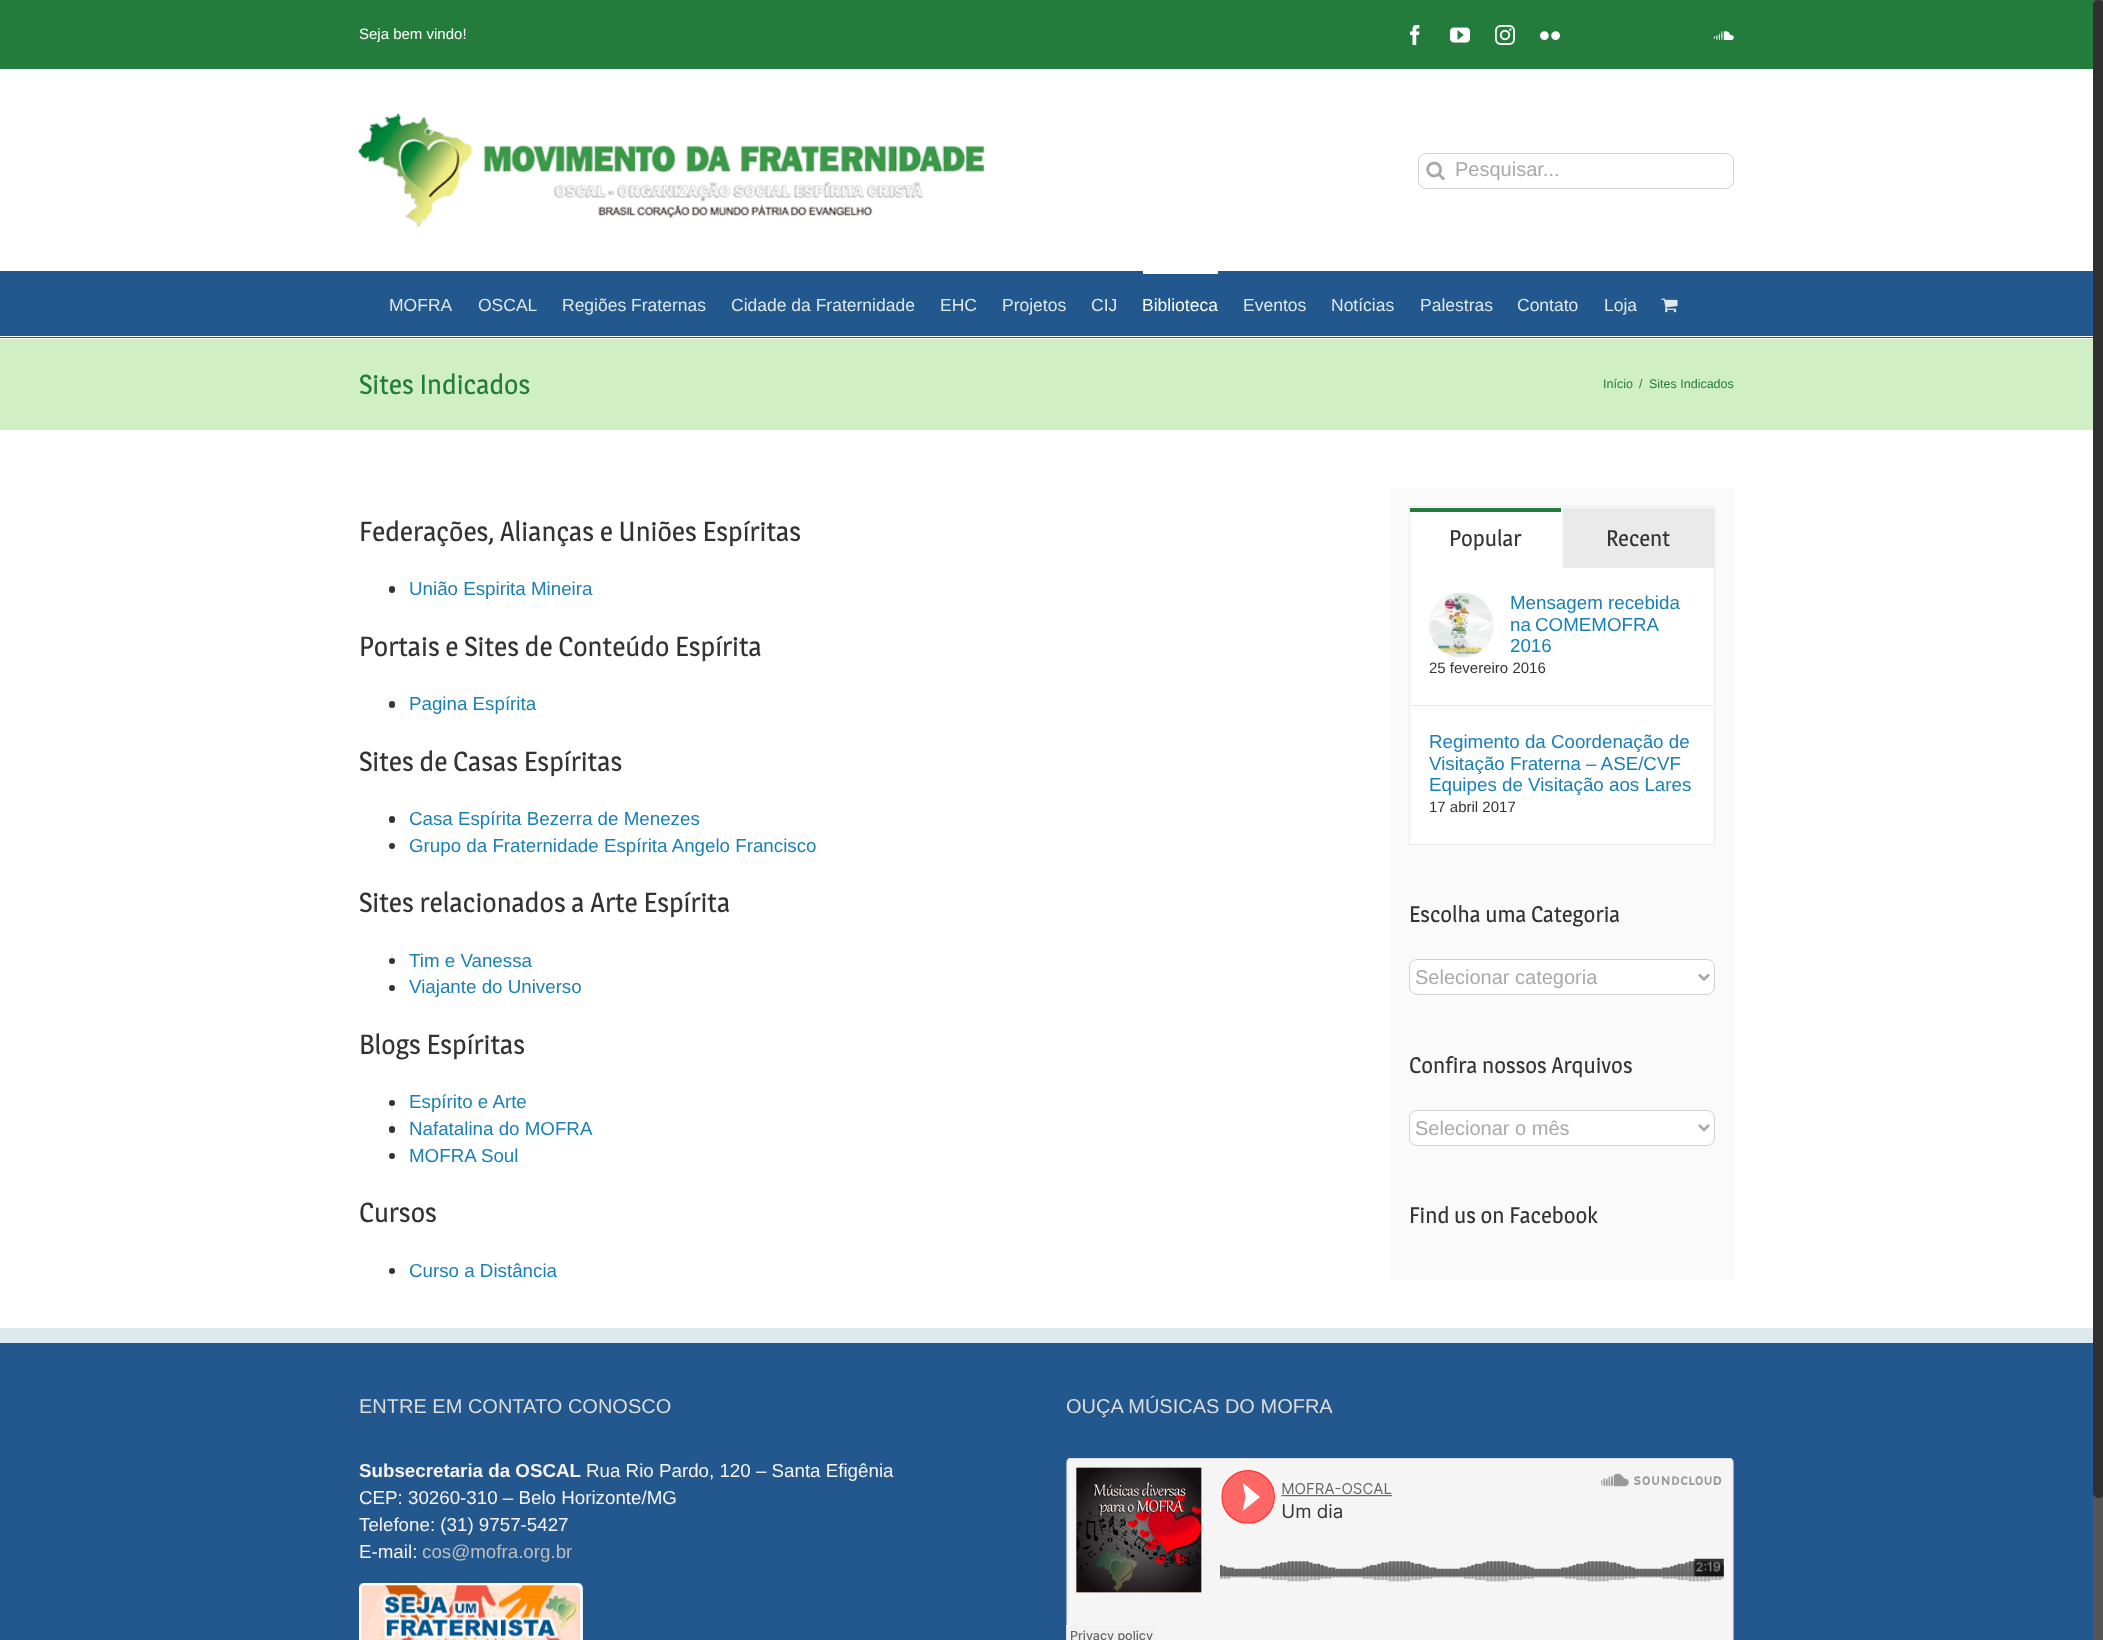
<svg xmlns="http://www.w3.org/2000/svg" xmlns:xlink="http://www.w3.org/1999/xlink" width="2103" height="1640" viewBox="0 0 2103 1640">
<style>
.cls-1{font:15px Liberation Sans;fill:#ffffff}
.cls-2{font:20px Liberation Sans;fill:#aaa9a9}
.cls-3{font:17.5px Liberation Sans;fill:#dfe8ec}
.cls-4{font:17.5px Liberation Sans;fill:#ffffff}
.cls-5{font:27.5px Magra;fill:#247c3c}
.cls-6{font:12.5px Liberation Sans;fill:#247c3c}
.cls-7{font:27.5px Magra;fill:#333333}
.cls-8{font:18.75px Liberation Sans;fill:#1a80b6}
.cls-9{font:22.5px Magra;fill:#333333}
.cls-10{font:15px Liberation Sans;fill:#333333}
.cls-11{font:20px Liberation Sans;fill:#dddddd}
.cls-12{font:bold 18.75px Liberation Sans;fill:#f7f2f2}
.cls-13{font:18.75px Liberation Sans;fill:#f7f2f2}
.cls-14{font:18.75px Liberation Sans;fill:#bfbfbf}
</style>
<rect width="100%" height="100%" fill="#ffffff"/>
<rect fill="#247c3c" x="0" y="0" width="2093" height="69"/>
<image xlink:href="image0.png" x="1410" y="25" width="10" height="20"/>
<image xlink:href="image1.png" x="1450" y="27" width="20" height="16"/>
<image xlink:href="image2.png" x="1495" y="25" width="20" height="20"/>
<image xlink:href="image3.png" x="1540" y="31" width="20" height="9"/>
<image xlink:href="image4.png" x="1713" y="31" width="21" height="9"/>
<image xlink:href="image5.png" x="358" y="113" width="626" height="114"/>
<rect fill="none" stroke="#d2d2d2" x="1418.5" y="153.5" width="315" height="35" rx="7.5"/>
<image xlink:href="image6.png" x="1426" y="161" width="19" height="20"/>
<rect fill="#22588d" x="0" y="271" width="2093" height="67"/>
<rect fill="#ffffff" x="0" y="336" width="2093" height="1"/>
<rect fill="#ffffff" x="1143" y="271" width="75" height="3"/>
<image xlink:href="image7.png" x="1661" y="298" width="17" height="15"/>
<rect fill="#d0efc4" x="0" y="339" width="2093" height="91"/>
<rect fill="#333333" x="389" y="586" width="6" height="7" rx="3"/>
<rect fill="#333333" x="389" y="701" width="6" height="7" rx="3"/>
<rect fill="#333333" x="389" y="816" width="6" height="7" rx="3"/>
<circle fill="#333333" cx="392" cy="846" r="3"/>
<circle fill="#333333" cx="392" cy="961" r="3"/>
<circle fill="#333333" cx="392" cy="988" r="3"/>
<circle fill="#333333" cx="392" cy="1103" r="3"/>
<rect fill="#333333" x="389" y="1126" width="6" height="7" rx="3"/>
<circle fill="#333333" cx="392" cy="1156" r="3"/>
<circle fill="#333333" cx="392" cy="1271" r="3"/>
<rect fill="#fafafa" x="1390" y="488" width="344" height="791"/>
<rect fill="none" stroke="#ebeaea" x="1409.5" y="506.5" width="305" height="338"/>
<rect fill="#ffffff" x="1561" y="508" width="1" height="60"/>
<rect fill="#ffffff" x="1410" y="512" width="151" height="56"/>
<rect fill="#247c3c" x="1410" y="508" width="151" height="4"/>
<rect fill="#ebeaea" x="1563" y="508" width="151" height="60"/>
<rect fill="#ffffff" x="1410" y="568" width="304" height="276"/>
<rect fill="#ebeaea" x="1410" y="705" width="304" height="1"/>
<image xlink:href="image8.png" x="1429" y="592" width="65" height="66"/>
<rect fill="#ffffff" stroke="#d2d2d2" x="1409.5" y="959.5" width="305" height="35" rx="7.5"/>
<path fill="none" stroke="#aaa9a9" stroke-width="2.5" d="M1699 974.5L1704 979.5L1709 974.5"/>
<rect fill="#ffffff" stroke="#d2d2d2" x="1409.5" y="1110.5" width="305" height="35" rx="7.5"/>
<path fill="none" stroke="#aaa9a9" stroke-width="2.5" d="M1699 1125L1704 1130L1709 1125"/>
<rect fill="#22588d" x="0" y="1343" width="2093" height="297"/>
<rect fill="#dee9ee" x="0" y="1328" width="2093" height="15"/>
<image xlink:href="image9.png" x="359" y="1583" width="224" height="57"/>
<image xlink:href="image10.png" x="1066" y="1458" width="668" height="182"/>
<rect fill="#555555" x="2093" y="0" width="10" height="1640"/>
<rect fill="#303030" x="2093" y="0" width="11" height="1498" rx="5.5"/>
<text class="cls-1" x="359" y="39">Seja bem vindo!</text>
<text class="cls-2" x="1455" y="176">Pesquisar...</text>
<text class="cls-3" x="389" y="311">MOFRA</text>
<text class="cls-3" x="478" y="311">OSCAL</text>
<text class="cls-3" x="562" y="311">Regiões Fraternas</text>
<text class="cls-3" x="731" y="311">Cidade da Fraternidade</text>
<text class="cls-3" x="940" y="311">EHC</text>
<text class="cls-3" x="1002" y="311">Projetos</text>
<text class="cls-3" x="1091" y="311">CIJ</text>
<text class="cls-4" x="1142" y="311">Biblioteca</text>
<text class="cls-3" x="1243" y="311">Eventos</text>
<text class="cls-3" x="1331" y="311">Notícias</text>
<text class="cls-3" x="1420" y="311">Palestras</text>
<text class="cls-3" x="1517" y="311">Contato</text>
<text class="cls-3" x="1604" y="311">Loja</text>
<text class="cls-5" x="359" y="394">Sites Indicados</text>
<text class="cls-6" x="1603" y="388">Início</text>
<text class="cls-6" x="1639" y="388">/</text>
<text class="cls-6" x="1649" y="388">Sites Indicados</text>
<text class="cls-7" x="359" y="541">Federações, Alianças e Uniões Espíritas</text>
<text class="cls-8" x="409" y="595">União Espirita Mineira</text>
<text class="cls-7" x="359" y="656">Portais e Sites de Conteúdo Espírita</text>
<text class="cls-8" x="409" y="710">Pagina Espírita</text>
<text class="cls-7" x="359" y="771">Sites de Casas Espíritas</text>
<text class="cls-8"><tspan x="409" y="825">Casa Espírita Bezerra de Menezes</tspan><tspan x="409" y="852">Grupo da Fraternidade Espírita Angelo Francisco</tspan></text>
<text class="cls-7" x="359" y="912">Sites relacionados a Arte Espírita</text>
<text class="cls-8"><tspan x="409" y="967">Tim e Vanessa</tspan><tspan x="409" y="993">Viajante do Universo</tspan></text>
<text class="cls-7" x="359" y="1054">Blogs Espíritas</text>
<text class="cls-8"><tspan x="409" y="1108">Espírito e Arte</tspan><tspan x="409" y="1135">Nafatalina do MOFRA</tspan><tspan x="409" y="1162">MOFRA Soul</tspan></text>
<text class="cls-7" x="359" y="1222">Cursos</text>
<text class="cls-8" x="409" y="1277">Curso a Distância</text>
<text class="cls-9" x="1449" y="546">Popular</text>
<text class="cls-9" x="1606" y="546">Recent</text>
<text class="cls-8"><tspan x="1510" y="609">Mensagem recebida</tspan><tspan x="1510" y="631" word-spacing="-1">na COMEMOFRA</tspan><tspan x="1510" y="652">2016</tspan></text>
<text class="cls-10" x="1429" y="673">25 fevereiro 2016</text>
<text class="cls-8"><tspan x="1429" y="748">Regimento da Coordenação de</tspan><tspan x="1429" y="770">Visitação Fraterna – ASE/CVF</tspan><tspan x="1429" y="791">Equipes de Visitação aos Lares</tspan></text>
<text class="cls-10" x="1429" y="812">17 abril 2017</text>
<text class="cls-9" x="1409" y="922">Escolha uma Categoria</text>
<text class="cls-2" x="1415" y="984">Selecionar categoria</text>
<text class="cls-9" x="1409" y="1073">Confira nossos Arquivos</text>
<text class="cls-2" x="1415" y="1135">Selecionar o mês</text>
<text class="cls-9" x="1409" y="1223">Find us on Facebook</text>
<text class="cls-11" x="359" y="1413">ENTRE EM CONTATO CONOSCO</text>
<text class="cls-12" x="359" y="1477">Subsecretaria da OSCAL</text>
<text class="cls-13" x="586" y="1477">Rua Rio Pardo, 120 – Santa Efigênia</text>
<text class="cls-13"><tspan x="359" y="1504">CEP: 30260-310 – Belo Horizonte/MG</tspan><tspan x="359" y="1531">Telefone: (31) 9757-5427</tspan><tspan x="359" y="1558">E-mail:</tspan></text>
<text class="cls-14" x="422" y="1558">cos@mofra.org.br</text>
<text class="cls-11" x="1066" y="1413">OUÇA MÚSICAS DO MOFRA</text>
</svg>
